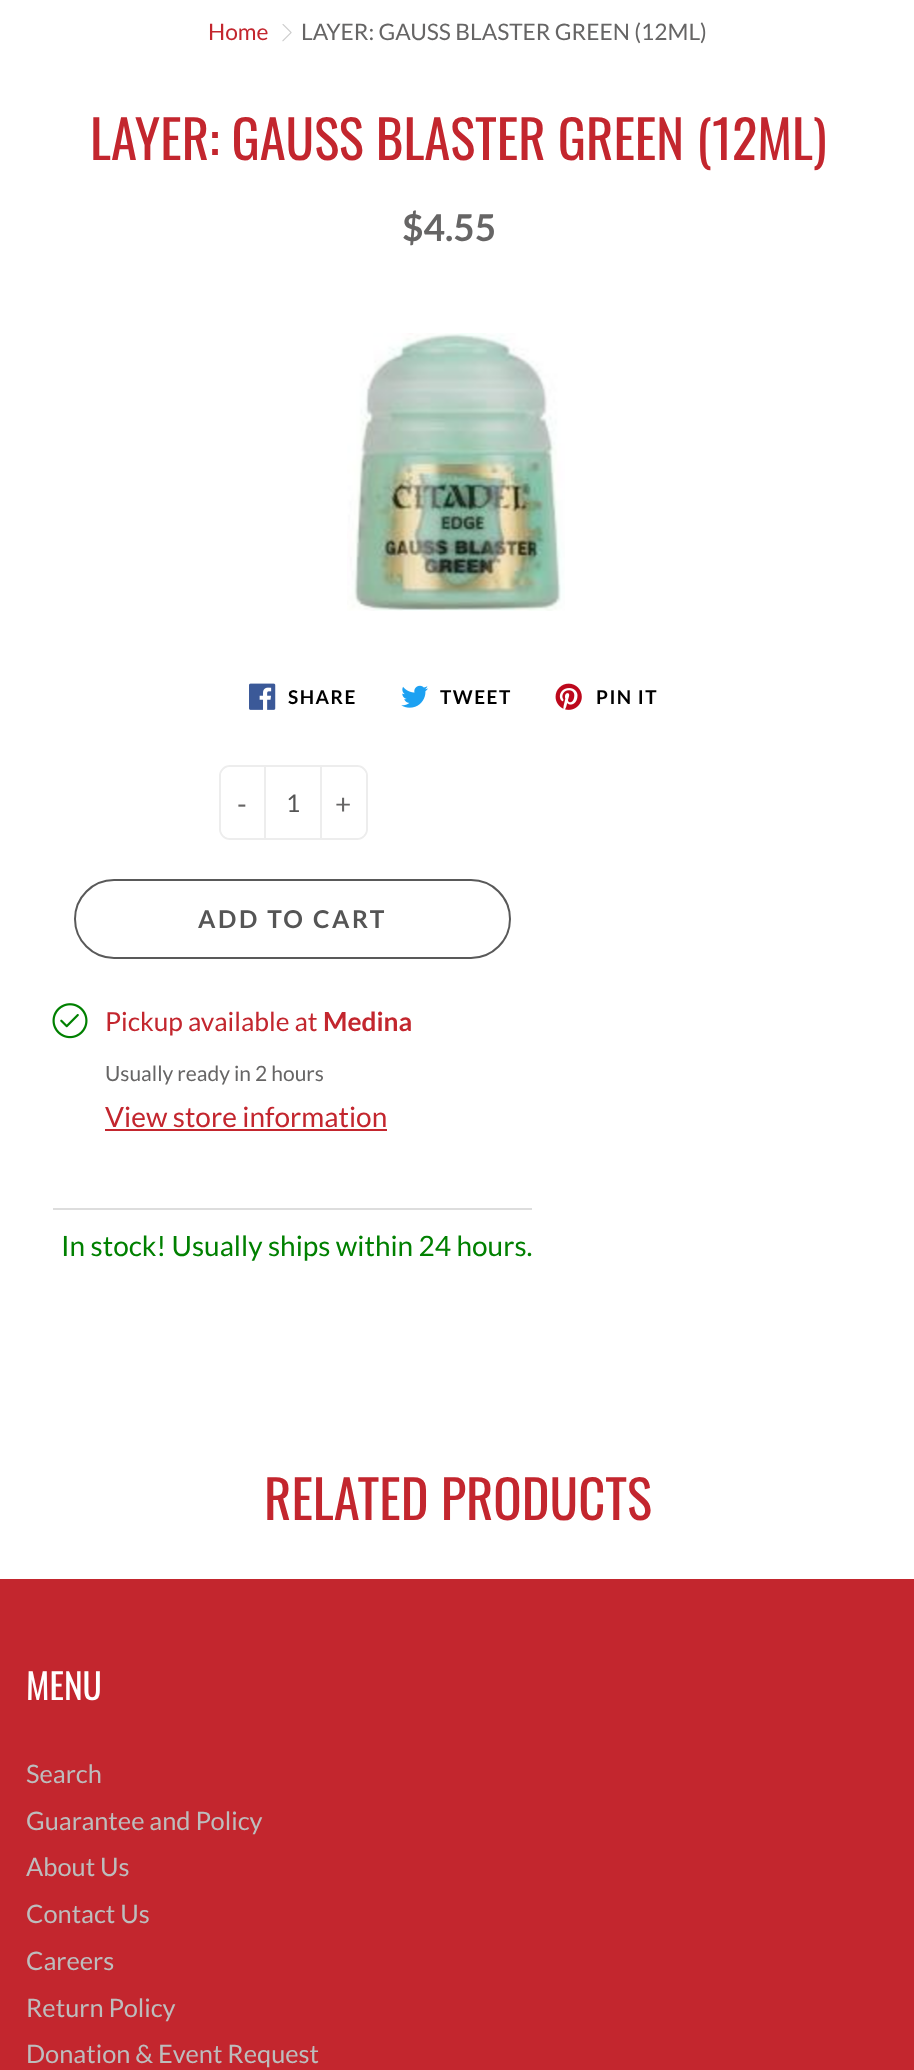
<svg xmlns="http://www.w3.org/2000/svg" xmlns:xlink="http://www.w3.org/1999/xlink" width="914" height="2070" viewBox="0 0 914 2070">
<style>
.cls-1{font:22.75px Lato;fill:#c3262e}
.cls-2{font:22.75px Lato;fill:#666565}
.cls-3{font:52.75px Oswald;fill:#c3262e}
.cls-4{font:bold 37px Lato;fill:#666565}
.cls-5{font:bold 19px Lato;letter-spacing:1.5px;fill:#000000}
.cls-6{font:28px Lato;fill:#666565}
.cls-7{font:24.5px Lato;fill:#555555}
.cls-8{font:bold 24.5px Lato;letter-spacing:2.6px;fill:#555555}
.cls-9{font:26.25px Lato;fill:#c3262e}
.cls-10{font:bold 26.25px Lato;fill:#c3262e}
.cls-11{font:21px Lato;fill:#666565}
.cls-12{font:28px Lato;fill:#c3262e}
.cls-13{font:28px Lato;fill:#008000}
.cls-14{font:35.5px Oswald;fill:#ffffff}
.cls-15{font:25.4px Lato;fill:#bdbdbd}
</style>
<rect width="100%" height="100%" fill="#ffffff"/>
<image xlink:href="image0.png" x="282" y="24" width="10" height="18"/>
<image xlink:href="image1.png" x="347" y="333" width="218" height="278"/>
<image xlink:href="image2.png" x="249" y="683" width="27" height="27"/>
<image xlink:href="image3.png" x="401" y="685" width="27" height="23"/>
<image xlink:href="image4.png" x="555" y="683" width="27" height="27"/>
<rect fill="none" stroke="#ededed" stroke-width="2" x="220" y="766" width="147" height="73" rx="10"/>
<path fill="#ffffff" d="M230 767H264V838H230C225 838 221 834 221 829V776C221 771 225 767 230 767Z"/>
<rect fill="#ededed" x="320" y="767" width="2" height="71"/>
<rect fill="#ededed" x="264" y="767" width="2" height="71"/>
<path fill="#ffffff" d="M322 767H357C362 767 366 771 366 776V829C366 834 362 838 357 838H322Z"/>
<rect fill="none" stroke="#595959" stroke-width="2" x="75" y="880" width="435" height="78" rx="39"/>
<image xlink:href="image5.png" x="52" y="1003" width="36" height="36"/>
<rect fill="#c3262e" x="105" y="1129" width="282" height="2"/>
<rect fill="#dddddd" x="53" y="1208" width="479" height="2"/>
<rect fill="#c3262e" x="0" y="1579" width="914" height="491"/>
<text class="cls-1" x="208" y="40">Home</text>
<text class="cls-2" x="301" y="40">LAYER: GAUSS BLASTER GREEN (12ML)</text>
<text class="cls-3" x="90" y="160">LAYER: GAUSS BLASTER GREEN (12ML)</text>
<text class="cls-4" x="402" y="241">$4.55</text>
<text class="cls-5" x="288" y="704">SHARE</text>
<text class="cls-5" x="440" y="704">TWEET</text>
<text class="cls-5" x="596" y="704">PIN IT</text>
<text class="cls-6" x="237" y="814">-</text>
<text class="cls-7" x="286" y="812">1</text>
<text class="cls-6" x="335" y="814">+</text>
<text class="cls-8" x="198" y="928">ADD TO CART</text>
<text class="cls-9" x="105" y="1031">Pickup available at</text>
<text class="cls-10" x="323" y="1031">Medina</text>
<text class="cls-11" x="105" y="1081">Usually ready in 2 hours</text>
<text class="cls-12" x="105" y="1127">View store information</text>
<text class="cls-13" x="61" y="1256">In stock! Usually ships within 24 hours.</text>
<text class="cls-3" x="264" y="1520">RELATED PRODUCTS</text>
<text class="cls-14" x="26" y="1700">MENU</text>
<text class="cls-15"><tspan x="26" y="1783">Search</tspan><tspan x="26" y="1830">Guarantee and Policy</tspan><tspan x="26" y="1876">About Us</tspan><tspan x="26" y="1923">Contact Us</tspan><tspan x="26" y="1970">Careers</tspan><tspan x="26" y="2017">Return Policy</tspan><tspan x="26" y="2063">Donation &amp; Event Request</tspan></text>
</svg>
